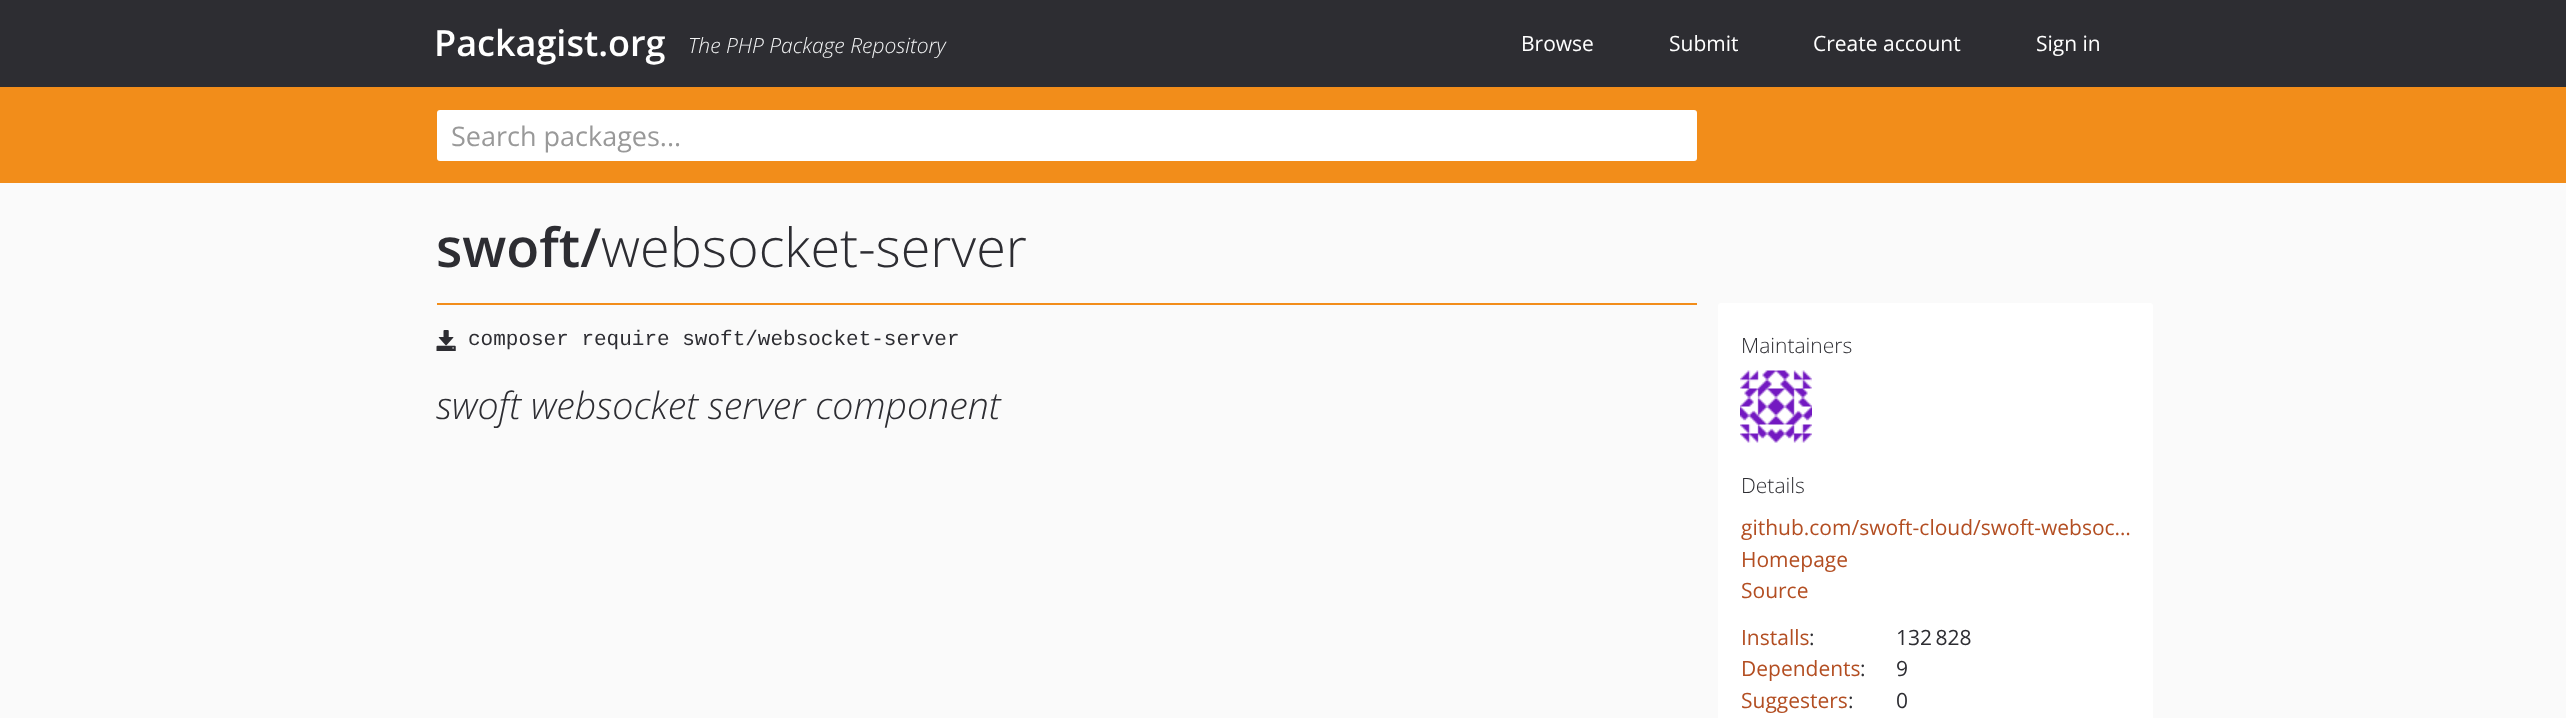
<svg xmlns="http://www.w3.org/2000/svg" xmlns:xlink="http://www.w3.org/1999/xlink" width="2566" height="718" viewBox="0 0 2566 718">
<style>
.cls-1{font:600 36px Open Sans;fill:#ffffff}
.cls-2{font:italic 300 21px Open Sans;fill:#f3f4f5}
.cls-3{font:21px Open Sans;fill:#ffffff}
.cls-4{font:27px Open Sans;fill:#999999}
.cls-5{font:600 54px Open Sans;fill:#2d2d32}
.cls-6{font:300 54px Open Sans;fill:#2d2d32}
.cls-7{font:21px Liberation Mono;fill:#2d2d32}
.cls-8{font:italic 300 37.5px Open Sans;fill:#2d2d32}
.cls-9{font:300 21px Open Sans;fill:#2d2d32}
.cls-10{font:21px Open Sans;fill:#b34e22}
.cls-11{font:21px Open Sans;fill:#2d2d32}
</style>
<rect width="100%" height="100%" fill="#fafafa"/>
<rect fill="#2d2d32" x="0" y="0" width="2566" height="87"/>
<rect fill="#f28d1a" x="0" y="87" width="2566" height="96"/>
<rect fill="#ffffff" x="437" y="110" width="1260" height="51" rx="3"/>
<rect fill="#f28d1a" x="437" y="303" width="1260" height="2"/>
<image xlink:href="image0.png" x="436" y="330" width="20" height="21"/>
<rect fill="#ffffff" x="1718" y="303" width="435" height="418" rx="3"/>
<image xlink:href="image1.png" x="1740" y="370" width="72" height="73"/>
<text class="cls-1" x="434" y="56">Packagist.org</text>
<text class="cls-2" x="688" y="53">The PHP Package Repository</text>
<text class="cls-3" x="1521" y="51">Browse</text>
<text class="cls-3" x="1669" y="51">Submit</text>
<text class="cls-3" x="1813" y="51">Create account</text>
<text class="cls-3" x="2036" y="51">Sign in</text>
<text class="cls-4" x="451" y="146">Search packages...</text>
<text class="cls-5" x="436" y="267">swoft/</text>
<text class="cls-6" x="601" y="267">websocket-server</text>
<text class="cls-7" x="468" y="345">composer require swoft/websocket-server</text>
<text class="cls-8" x="436" y="419">swoft websocket server component</text>
<text class="cls-9" x="1741" y="353">Maintainers</text>
<text class="cls-9" x="1741" y="493">Details</text>
<text class="cls-10"><tspan x="1741" y="535">github.com/swoft-cloud/swoft-websoc…</tspan><tspan x="1741" y="567">Homepage</tspan><tspan x="1741" y="598">Source</tspan></text>
<text class="cls-10" x="1741" y="645">Installs</text>
<text class="cls-11" x="1809" y="645">:</text>
<text class="cls-11" x="1896" y="645">132 828</text>
<text class="cls-10" x="1741" y="676">Dependents</text>
<text class="cls-11" x="1860" y="676">:</text>
<text class="cls-11" x="1896" y="676">9</text>
<text class="cls-10" x="1741" y="708">Suggesters</text>
<text class="cls-11" x="1848" y="708">:</text>
<text class="cls-11" x="1896" y="708">0</text>
</svg>
